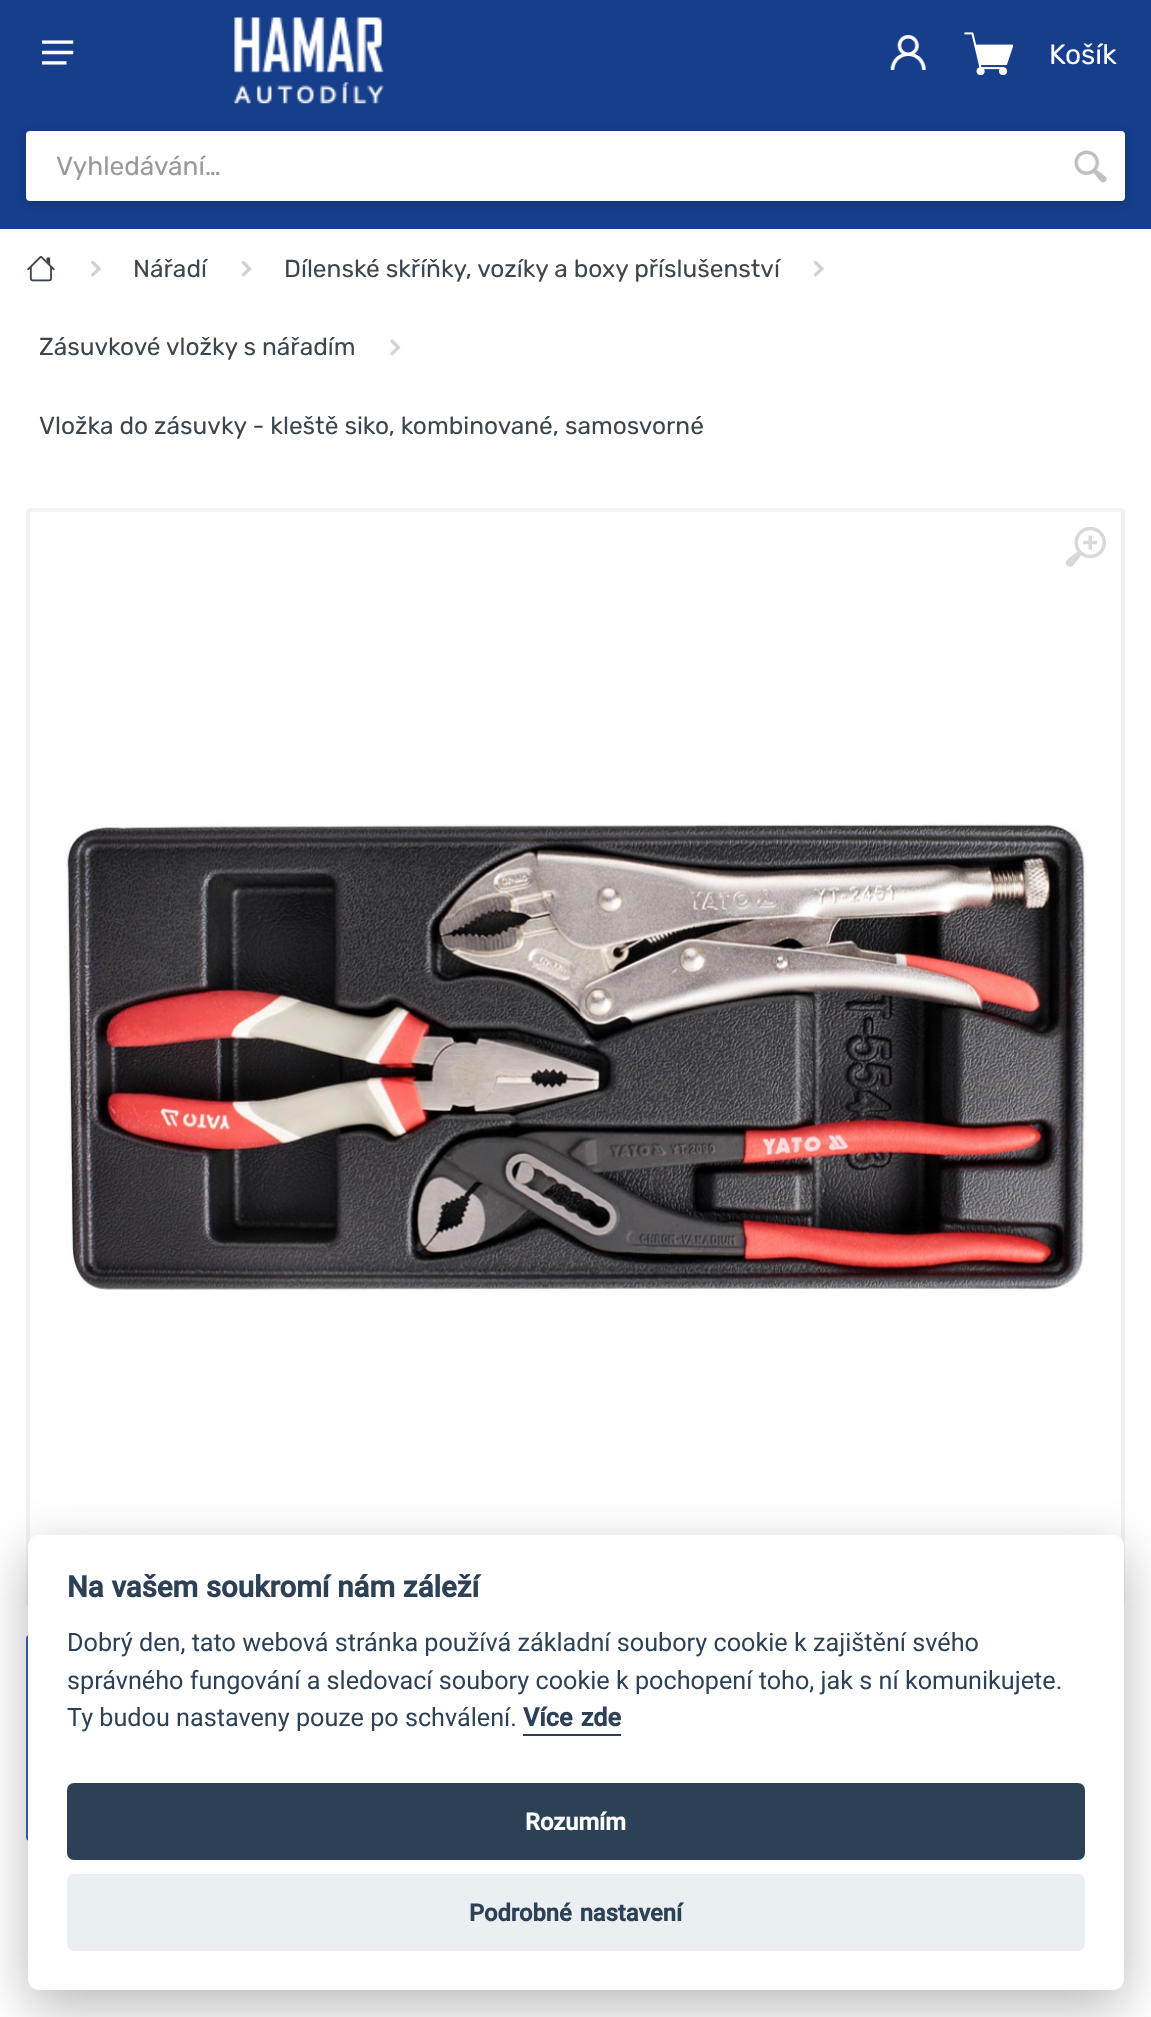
<svg xmlns="http://www.w3.org/2000/svg" xmlns:xlink="http://www.w3.org/1999/xlink" width="1151" height="2017" viewBox="0 0 1151 2017">
<style>
.cls-1{font:28px Rubik;fill:#ffffff}
.cls-2{font:26.25px Rubik;fill:#999999}
.cls-3{font:24.5px Rubik;fill:#3d464d}
.cls-4{font:bold 29.4px Roboto;fill:#2d4156}
.cls-5{font:25.2px Roboto;fill:#2d4156}
.cls-6{font:bold 25.2px Roboto;fill:#2d4156}
.cls-7{font:bold 23.75px Roboto;fill:#ffffff}
.cls-8{font:bold 23.75px Roboto;fill:#2d4156}
</style>
<rect width="100%" height="100%" fill="#ffffff"/>
<rect fill="#173e8b" x="0" y="0" width="1151" height="229"/>
<image xlink:href="image0.png" x="42" y="40" width="32" height="25"/>
<image xlink:href="image1.png" x="234" y="17" width="150" height="87"/>
<image xlink:href="image2.png" x="890" y="35" width="36" height="35"/>
<image xlink:href="image3.png" x="964" y="32" width="49" height="43"/>
<rect fill="#000000" fill-opacity="0.2" filter="blur(4.5px)" x="26" y="133" width="1099" height="70" rx="4"/>
<rect fill="#ffffff" x="26" y="131" width="1099" height="70" rx="4"/>
<image xlink:href="image4.png" x="1073" y="150" width="34" height="33"/>
<image xlink:href="image5.png" x="27" y="256" width="28" height="26"/>
<image xlink:href="image6.png" x="91" y="261" width="10" height="16"/>
<image xlink:href="image7.png" x="241" y="261" width="11" height="16"/>
<image xlink:href="image8.png" x="814" y="261" width="10" height="16"/>
<image xlink:href="image9.png" x="390" y="339" width="11" height="17"/>
<rect fill="none" stroke="#f2f2f2" stroke-width="4" x="28" y="510" width="1095" height="1095" rx="2"/>
<image xlink:href="image10.png" x="1065" y="527" width="41" height="40"/>
<image xlink:href="image11.png" x="65" y="823" width="1021" height="467"/>
<rect fill="none" stroke="#3366cc" stroke-width="4" x="28" y="1637" width="203" height="202" rx="2"/>
<rect fill="#020203" fill-opacity="0.28" filter="blur(26px)" x="28" y="1552" width="1096" height="455" rx="11"/>
<rect fill="#ffffff" x="28" y="1535" width="1096" height="455" rx="11"/>
<rect fill="#2d4156" x="523" y="1734" width="98" height="2"/>
<rect fill="#2d4156" x="67" y="1783" width="1018" height="77" rx="7"/>
<rect fill="#eaeff2" x="67" y="1874" width="1018" height="77" rx="7"/>
<text class="cls-1" x="1049" y="64">Košík</text>
<text class="cls-2" x="56" y="175">Vyhledávání…</text>
<text class="cls-3" x="133" y="277">Nářadí</text>
<text class="cls-3" x="284" y="277">Dílenské skříňky, vozíky a boxy příslušenství</text>
<text class="cls-3" x="39" y="355">Zásuvkové vložky s nářadím</text>
<text class="cls-3" x="39" y="434">Vložka do zásuvky - kleště siko, kombinované, samosvorné</text>
<text class="cls-4" x="67" y="1597" word-spacing="0.5">Na vašem soukromí nám záleží</text>
<text class="cls-5"><tspan x="67" y="1651">Dobrý den, tato webová stránka používá základní soubory cookie k zajištění svého</tspan><tspan x="67" y="1689">správného fungování a sledovací soubory cookie k pochopení toho, jak s ní komunikujete.</tspan><tspan x="67" y="1726">Ty budou nastaveny pouze po schválení.</tspan></text>
<text class="cls-6" x="523" y="1726" word-spacing="2">Více zde</text>
<text class="cls-7" x="525" y="1830">Rozumím</text>
<text class="cls-8" x="469" y="1921" word-spacing="2">Podrobné nastavení</text>
</svg>
